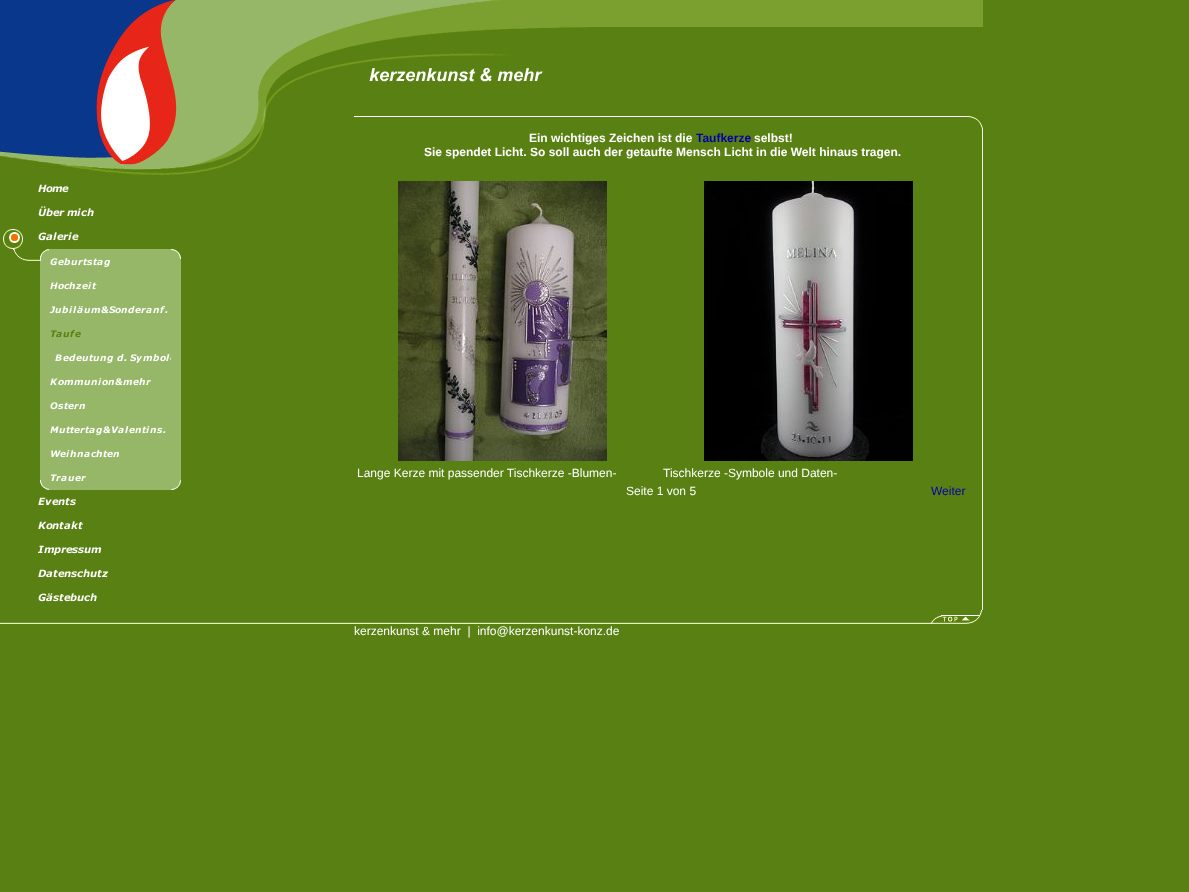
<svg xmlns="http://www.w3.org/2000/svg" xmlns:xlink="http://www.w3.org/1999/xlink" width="1189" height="892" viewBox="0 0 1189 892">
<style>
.cls-1{font:bold 12px Liberation Sans;fill:#ffffff}
.cls-2{font:bold 12px Liberation Sans;fill:#0000aa}
.cls-3{font:12px Liberation Sans;fill:#ffffff}
.cls-4{font:12px Liberation Sans;fill:#0000aa}
</style>
<rect width="100%" height="100%" fill="#598012"/>
<image xlink:href="image0.png" x="0" y="0" width="204" height="176"/>
<image xlink:href="image1.png" x="38" y="184" width="31" height="9"/>
<image xlink:href="image2.png" x="38" y="206" width="56" height="11"/>
<image xlink:href="image3.png" x="3" y="229" width="76" height="20"/>
<rect fill="#96b767" x="40" y="261" width="9" height="219"/>
<image xlink:href="image4.png" x="13" y="249" width="36" height="12"/>
<rect fill="#96b767" x="49" y="249" width="122" height="3"/>
<image xlink:href="image5.png" x="49" y="252" width="122" height="18"/>
<rect fill="#96b767" x="49" y="270" width="122" height="6"/>
<image xlink:href="image6.png" x="49" y="276" width="122" height="18"/>
<rect fill="#96b767" x="49" y="294" width="122" height="6"/>
<image xlink:href="image7.png" x="49" y="300" width="122" height="18"/>
<rect fill="#96b767" x="49" y="318" width="122" height="6"/>
<image xlink:href="image8.png" x="49" y="324" width="122" height="18"/>
<rect fill="#96b767" x="49" y="342" width="122" height="6"/>
<image xlink:href="image9.png" x="49" y="348" width="122" height="18"/>
<rect fill="#96b767" x="49" y="366" width="122" height="6"/>
<image xlink:href="image10.png" x="49" y="372" width="122" height="18"/>
<rect fill="#96b767" x="49" y="390" width="122" height="6"/>
<image xlink:href="image11.png" x="49" y="396" width="122" height="18"/>
<rect fill="#96b767" x="49" y="414" width="122" height="6"/>
<image xlink:href="image12.png" x="49" y="420" width="122" height="18"/>
<rect fill="#96b767" x="49" y="438" width="122" height="6"/>
<image xlink:href="image13.png" x="49" y="444" width="122" height="18"/>
<rect fill="#96b767" x="49" y="462" width="122" height="6"/>
<image xlink:href="image14.png" x="49" y="468" width="122" height="18"/>
<rect fill="#96b767" x="49" y="486" width="122" height="4"/>
<rect fill="#96b767" x="171" y="259" width="10" height="221"/>
<image xlink:href="image15.png" x="171" y="249" width="10" height="10"/>
<image xlink:href="image16.png" x="40" y="480" width="9" height="10"/>
<image xlink:href="image17.png" x="171" y="480" width="10" height="10"/>
<image xlink:href="image18.png" x="38" y="497" width="38" height="9"/>
<image xlink:href="image19.png" x="38" y="521" width="45" height="9"/>
<image xlink:href="image20.png" x="38" y="545" width="64" height="10"/>
<image xlink:href="image21.png" x="38" y="569" width="71" height="9"/>
<image xlink:href="image22.png" x="38" y="593" width="59" height="9"/>
<image xlink:href="image23.png" x="204" y="0" width="150" height="84"/>
<image xlink:href="image24.png" x="204" y="84" width="85" height="88"/>
<rect fill="#7ca02f" x="588" y="0" width="380" height="27"/>
<image xlink:href="image25.png" x="354" y="0" width="234" height="64"/>
<image xlink:href="image26.png" x="369" y="67" width="174" height="15"/>
<rect fill="#ffffff" x="354" y="116" width="614" height="1"/>
<image xlink:href="image27.png" x="398" y="181" width="209" height="280"/>
<image xlink:href="image28.png" x="704" y="181" width="209" height="280"/>
<rect fill="#eff4e5" x="982" y="130" width="1" height="480"/>
<image xlink:href="image29.png" x="968" y="0" width="15" height="35"/>
<image xlink:href="image30.png" x="968" y="116" width="15" height="14"/>
<image xlink:href="image31.png" x="0" y="622" width="354" height="2"/>
<image xlink:href="image32.png" x="354" y="622" width="577" height="2"/>
<image xlink:href="image33.png" x="931" y="610" width="52" height="14"/>
<text class="cls-1" x="529" y="142">Ein wichtiges Zeichen ist die</text>
<text class="cls-2" x="696" y="142">Taufkerze</text>
<text class="cls-1" x="754" y="142">selbst!</text>
<text class="cls-1" x="424" y="156">Sie spendet Licht. So soll auch der getaufte Mensch Licht in die Welt hinaus tragen.</text>
<text class="cls-3" x="357" y="477">Lange Kerze mit passender Tischkerze -Blumen-</text>
<text class="cls-3" x="663" y="477">Tischkerze -Symbole und Daten-</text>
<text class="cls-3" x="626" y="495">Seite 1 von 5</text>
<text class="cls-4" x="931" y="495">Weiter</text>
<text class="cls-3" xml:space="preserve" x="354" y="635">kerzenkunst &amp; mehr  |  info@kerzenkunst-konz.de</text>
</svg>
